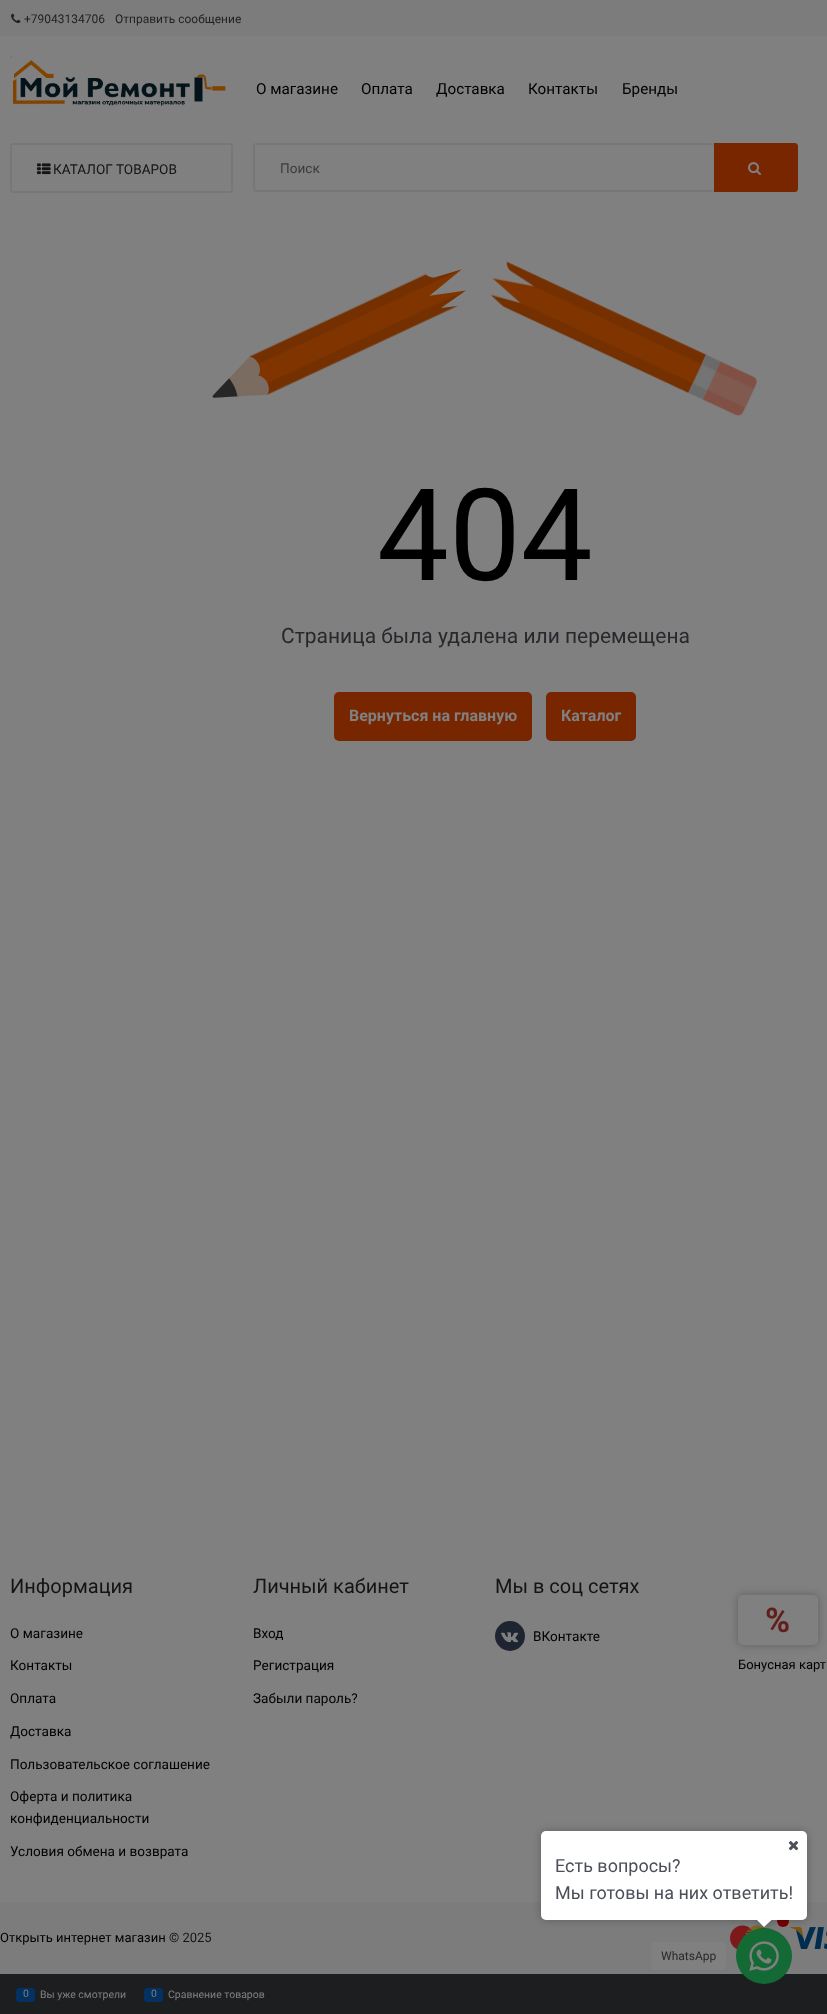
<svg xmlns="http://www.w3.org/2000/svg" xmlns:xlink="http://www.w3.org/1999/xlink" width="827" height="2014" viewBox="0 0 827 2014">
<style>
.cls-1{font:12px Roboto;fill:#222222}
.cls-2{font:15.25px Roboto;fill:#000000}
.cls-3{font:13.6px Roboto;fill:#131416}
.cls-4{font:13.6px Roboto;fill:#3b3b3b}
.cls-5{font:128px Roboto;fill:#000000}
.cls-6{font:21px Roboto;fill:#26282c}
.cls-7{font:bold 16px Roboto;fill:#808080}
.cls-8{font:20px Roboto;fill:#131416}
.cls-9{font:13.6px Roboto;fill:#000000}
.cls-10{font:bold 34px Roboto;fill:#611f1b}
.cls-11{font:13px Roboto;fill:#000000}
.cls-12{font:13px Roboto;fill:#131416}
.cls-13{font:10.5px Roboto;fill:#808080}
.cls-14{font:18px Roboto;fill:#4b4f58}
.cls-15{font:12px Roboto;fill:#26282c}
</style>
<defs>
<clipPath id="clip1"><rect x="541" y="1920" width="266" height="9"/></clipPath>
<clipPath id="clip2"><rect x="541" y="1920" width="266" height="9"/></clipPath>
</defs>
<rect width="100%" height="100%" fill="#808080"/>
<rect fill="#7c7c7c" x="0" y="0" width="827" height="36"/>
<image xlink:href="image0.png" x="11" y="13" width="10" height="11"/>
<image xlink:href="image1.png" x="10" y="56" width="216" height="50"/>
<rect fill="none" stroke="#777777" stroke-width="2" x="11" y="144" width="221" height="48" rx="2"/>
<image xlink:href="image2.png" x="37" y="163" width="14" height="12"/>
<path fill="#777777" fill-rule="evenodd" d="M256 143H711C713 143 714 144 714 146V189C714 191 713 192 711 192H256C254 192 253 191 253 189V146C253 144 254 143 256 143ZM256 145H711C713 145 714 145 714 146V189C714 190 713 190 711 190H256C255 190 255 190 255 189V146C255 145 255 145 256 145Z"/>
<path fill="#772600" d="M714 143H795C796.5 143 798 144.5 798 146V189C798 190.5 796.5 192 795 192H714Z"/>
<image xlink:href="image3.png" x="748" y="162" width="13" height="14"/>
<image xlink:href="image4.png" x="212" y="261" width="546" height="155"/>
<rect fill="#772600" x="334" y="692" width="198" height="49" rx="5"/>
<rect fill="#772600" x="546" y="692" width="90" height="49" rx="5"/>
<circle fill="#1e2530" cx="510" cy="1636" r="15"/>
<image xlink:href="image5.png" x="501" y="1632" width="18" height="11"/>
<rect fill="#000000" fill-opacity="0.25" filter="blur(4.5px)" x="738" y="1595" width="80" height="50" rx="5"/>
<rect fill="#808080" x="738" y="1595" width="80" height="50" rx="5"/>
<rect fill="#7c7c7c" x="0" y="1902" width="827" height="72"/>
<image xlink:href="image6.png" x="730" y="1925" width="36" height="25"/>
<image xlink:href="image7.png" x="790" y="1927" width="37" height="22"/>
<rect fill="#1c1e20" x="0" y="1974" width="827" height="40"/>
<rect fill="#033161" x="16" y="1988" width="19" height="14" rx="3"/>
<rect fill="#033161" x="144" y="1988" width="19" height="14" rx="3"/>
<circle fill="#720001" cx="783" cy="1921" r="6"/>
<circle fill="#136a34" cx="764" cy="1956" r="28"/>
<rect fill="#000000" fill-opacity="0.25" filter="blur(4.5px)" x="541" y="1831" width="266" height="89" rx="5"/>
<rect fill="#ffffff" x="541" y="1831" width="266" height="89" rx="5"/>
<image xlink:href="image8.png" x="788" y="1841" width="11" height="10"/>
<g clip-path="url(#clip1)">
<rect fill="#000000" fill-opacity="0.25" filter="blur(4.5px)" x="759" y="1915" width="10" height="10"/>
</g>
<g clip-path="url(#clip2)">
<path fill="#ffffff" d="M764 1912.5L771.5 1920L764 1927L757 1920Z"/>
</g>
<rect fill="#808080" x="651" y="1942" width="75" height="28" rx="3"/>
<image xlink:href="image9.png" x="749" y="1941" width="30" height="30"/>
<text class="cls-1" x="24" y="23">+79043134706</text>
<text class="cls-1" x="115" y="23">Отправить сообщение</text>
<text class="cls-2" x="256" y="94">О магазине</text>
<text class="cls-2" x="361" y="94">Оплата</text>
<text class="cls-2" x="436" y="94">Доставка</text>
<text class="cls-2" x="528" y="94">Контакты</text>
<text class="cls-2" x="622" y="94">Бренды</text>
<text class="cls-3" x="53" y="174">КАТАЛОГ ТОВАРОВ</text>
<text class="cls-4" x="280" y="173">Поиск</text>
<text class="cls-5" x="377" y="580">404</text>
<text class="cls-6" x="281" y="643">Страница была удалена или перемещена</text>
<text class="cls-7" x="349" y="721">Вернуться на главную</text>
<text class="cls-7" x="561" y="721">Каталог</text>
<text class="cls-8" x="10" y="1593">Информация</text>
<text class="cls-9" x="10" y="1638">О магазине</text>
<text class="cls-9" x="10" y="1670">Контакты</text>
<text class="cls-9" x="10" y="1703">Оплата</text>
<text class="cls-9" x="10" y="1736">Доставка</text>
<text class="cls-9" x="10" y="1769">Пользовательское соглашение</text>
<text class="cls-9"><tspan x="10" y="1801">Оферта и политика</tspan><tspan x="10" y="1823">конфиденциальности</tspan></text>
<text class="cls-9" x="10" y="1856">Условия обмена и возврата</text>
<text class="cls-8" x="253" y="1593">Личный кабинет</text>
<text class="cls-9" x="253" y="1638">Вход</text>
<text class="cls-9" x="253" y="1670">Регистрация</text>
<text class="cls-9" x="253" y="1703">Забыли пароль?</text>
<text class="cls-8" x="495" y="1593">Мы в соц сетях</text>
<text class="cls-9" x="533" y="1641">ВКонтакте</text>
<text class="cls-10" x="765" y="1632">%</text>
<text class="cls-11" x="738" y="1669">Бонусная карт</text>
<text class="cls-11" x="0" y="1942">Открыть интернет магазин</text>
<text class="cls-12" x="169" y="1942">© 2025</text>
<text class="cls-13" x="23" y="1997">0</text>
<text class="cls-13" x="40" y="1998">Вы уже смотрели</text>
<text class="cls-13" x="151" y="1997">0</text>
<text class="cls-13" x="168" y="1998">Сравнение товаров</text>
<text class="cls-14"><tspan x="555" y="1872">Есть вопросы?</tspan><tspan x="555" y="1899">Мы готовы на них ответить!</tspan></text>
<text class="cls-15" x="661" y="1960">WhatsApp</text>
</svg>
